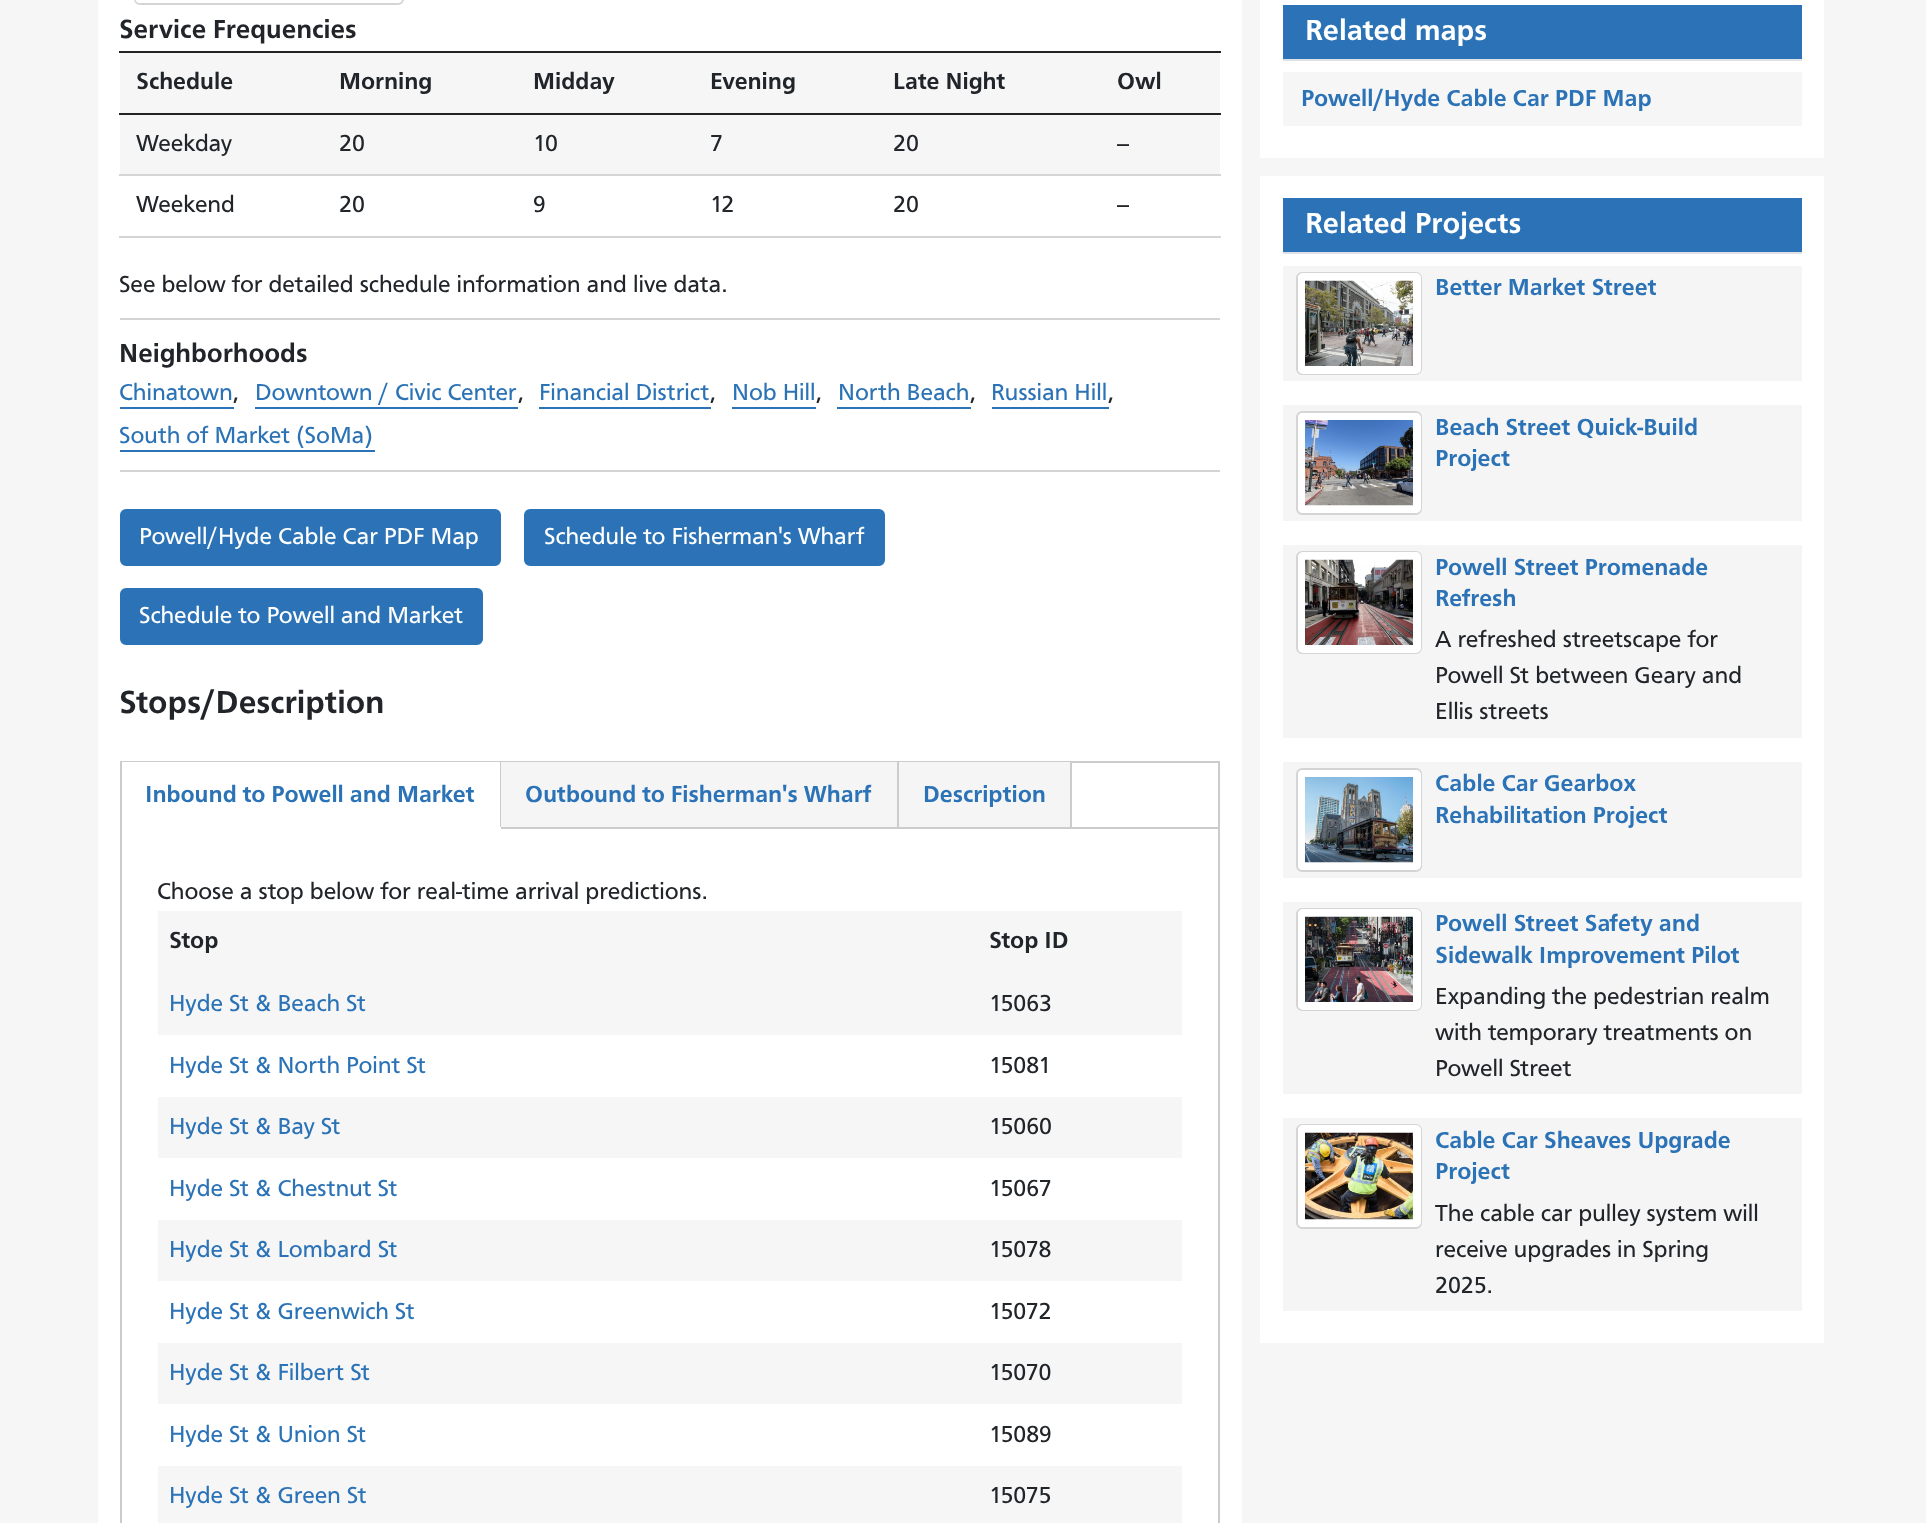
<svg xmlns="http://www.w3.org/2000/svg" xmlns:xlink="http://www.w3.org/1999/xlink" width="1926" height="1523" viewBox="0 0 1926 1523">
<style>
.cls-1{font:bold 27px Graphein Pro;fill:#212529}
.cls-2{font:bold 24px Graphein Pro;fill:#212529}
.cls-3{font:24px Graphein Pro;fill:#212529}
.cls-4{font:24px Graphein Pro;fill:#2b73b6}
.cls-5{font:24px Graphein Pro;fill:#ffffff}
.cls-6{font:bold 33px Graphein Pro;fill:#212529}
.cls-7{font:bold 24px Graphein Pro;fill:#2b73b6}
.cls-8{font:bold 30px Graphein Pro;fill:#ffffff}
</style>
<rect width="100%" height="100%" fill="#f6f6f7"/>
<rect fill="#ffffff" x="98" y="0" width="1144" height="1523"/>
<rect fill="none" stroke="#d5d5d6" stroke-width="2" x="135" y="-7" width="268" height="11" rx="5"/>
<rect fill="none" stroke="#ffffff" stroke-width="8" x="139" y="-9" width="259" height="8" rx="1"/>
<rect fill="#d5d5d6" x="120" y="318" width="1100" height="2"/>
<rect fill="#f6f6f7" x="120" y="53" width="1100" height="60"/>
<rect fill="#232325" x="119" y="51" width="1102" height="2"/>
<rect fill="#232325" x="119" y="113" width="1102" height="2"/>
<rect fill="#d5d5d6" x="119" y="174" width="1102" height="2"/>
<rect fill="#f6f6f7" x="120" y="115" width="1100" height="59"/>
<rect fill="#d5d5d6" x="119" y="236" width="1102" height="2"/>
<rect fill="#d5d5d6" x="120" y="470" width="1100" height="2"/>
<rect fill="#2b73b6" x="120" y="407" width="114" height="2"/>
<rect fill="#2b73b6" x="255" y="407" width="263" height="2"/>
<rect fill="#2b73b6" x="539" y="407" width="172" height="2"/>
<rect fill="#2b73b6" x="732" y="407" width="84" height="2"/>
<rect fill="#2b73b6" x="837" y="407" width="134" height="2"/>
<rect fill="#2b73b6" x="992" y="407" width="117" height="2"/>
<rect fill="#2b73b6" x="120" y="450" width="255" height="2"/>
<rect fill="#2b73b6" stroke="#2b73b6" stroke-width="2" x="121" y="510" width="379" height="55" rx="5"/>
<rect fill="#2b73b6" stroke="#2b73b6" stroke-width="2" x="525" y="510" width="359" height="55" rx="5"/>
<rect fill="#2b73b6" stroke="#2b73b6" stroke-width="2" x="121" y="589" width="361" height="55" rx="5"/>
<rect fill="none" stroke="#cccccc" stroke-width="2" x="121" y="762" width="1098" height="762"/>
<rect fill="#cccccc" x="501" y="827" width="717" height="2"/>
<rect fill="#ffffff" x="122" y="762" width="378" height="1"/>
<rect fill="#cccccc" x="500" y="762" width="2" height="66"/>
<rect fill="#ffffff" x="500" y="827" width="1" height="1"/>
<rect fill="#f5f5f5" x="501" y="762" width="396" height="65"/>
<rect fill="#cccccc" x="897" y="762" width="2" height="65"/>
<rect fill="#f5f5f5" x="899" y="762" width="171" height="65"/>
<rect fill="#cccccc" x="1070" y="762" width="2" height="65"/>
<rect fill="#f6f6f7" x="158" y="911" width="1024" height="61"/>
<rect fill="#f6f6f7" x="158" y="972" width="1024" height="63"/>
<rect fill="#f6f6f7" x="158" y="1097" width="1024" height="61"/>
<rect fill="#f6f6f7" x="158" y="1220" width="1024" height="61"/>
<rect fill="#f6f6f7" x="158" y="1343" width="1024" height="61"/>
<rect fill="#f6f6f7" x="158" y="1466" width="1024" height="57"/>
<rect fill="#ffffff" x="1260" y="0" width="564" height="158"/>
<rect fill="#2b73b6" x="1283" y="5" width="519" height="54"/>
<rect fill="#dee2e6" x="1283" y="59" width="519" height="2"/>
<rect fill="#f6f6f7" x="1283" y="72" width="519" height="54"/>
<rect fill="#ffffff" x="1260" y="176" width="564" height="1167"/>
<rect fill="#2b73b6" x="1283" y="198" width="519" height="54"/>
<rect fill="#dee2e6" x="1283" y="252" width="519" height="2"/>
<rect fill="#f5f5f5" x="1283" y="266" width="519" height="115"/>
<rect fill="none" stroke="#d5d5d6" stroke-width="2" x="1297" y="273" width="124" height="101" rx="5"/>
<rect fill="none" stroke="#ffffff" stroke-width="8" x="1302" y="277" width="115" height="93" rx="1"/>
<image xlink:href="image0.png" x="1305" y="280" width="108" height="86"/>
<rect fill="#f5f5f5" x="1283" y="405" width="519" height="116"/>
<rect fill="none" stroke="#d5d5d6" stroke-width="2" x="1297" y="412" width="124" height="102" rx="5"/>
<rect fill="none" stroke="#ffffff" stroke-width="8" x="1302" y="417" width="115" height="92" rx="1"/>
<image xlink:href="image1.png" x="1305" y="420" width="108" height="86"/>
<rect fill="#f5f5f5" x="1283" y="545" width="519" height="193"/>
<rect fill="none" stroke="#d5d5d6" stroke-width="2" x="1297" y="552" width="124" height="101" rx="5"/>
<rect fill="none" stroke="#ffffff" stroke-width="8" x="1302" y="556" width="115" height="93" rx="1"/>
<image xlink:href="image2.png" x="1305" y="559" width="108" height="86"/>
<rect fill="#f5f5f5" x="1283" y="762" width="519" height="116"/>
<rect fill="none" stroke="#d5d5d6" stroke-width="2" x="1297" y="769" width="124" height="102" rx="5"/>
<rect fill="none" stroke="#ffffff" stroke-width="8" x="1302" y="774" width="115" height="92" rx="1"/>
<image xlink:href="image3.png" x="1305" y="777" width="108" height="86"/>
<rect fill="#f5f5f5" x="1283" y="902" width="519" height="192"/>
<rect fill="none" stroke="#d5d5d6" stroke-width="2" x="1297" y="909" width="124" height="101" rx="5"/>
<rect fill="none" stroke="#ffffff" stroke-width="8" x="1302" y="913" width="115" height="93" rx="1"/>
<image xlink:href="image4.png" x="1305" y="916" width="108" height="86"/>
<rect fill="#f5f5f5" x="1283" y="1118" width="519" height="193"/>
<rect fill="none" stroke="#d5d5d6" stroke-width="2" x="1297" y="1125" width="124" height="103" rx="5"/>
<rect fill="none" stroke="#ffffff" stroke-width="8" x="1302" y="1129" width="115" height="94" rx="1"/>
<image xlink:href="image5.png" x="1305" y="1132" width="108" height="88"/>
<text class="cls-1" x="119" y="38">Service Frequencies</text>
<text class="cls-2" x="136" y="89">Schedule</text>
<text class="cls-2" x="339" y="89">Morning</text>
<text class="cls-2" x="533" y="89">Midday</text>
<text class="cls-2" x="710" y="89">Evening</text>
<text class="cls-2" x="893" y="89">Late Night</text>
<text class="cls-2" x="1117" y="89">Owl</text>
<text class="cls-3" x="136" y="151">Weekday</text>
<text class="cls-3" x="339" y="151">20</text>
<text class="cls-3" x="533" y="151">10</text>
<text class="cls-3" x="710" y="151">7</text>
<text class="cls-3" x="893" y="151">20</text>
<text class="cls-3" x="1117" y="151">--</text>
<text class="cls-3" x="136" y="212">Weekend</text>
<text class="cls-3" x="339" y="212">20</text>
<text class="cls-3" x="533" y="212">9</text>
<text class="cls-3" x="710" y="212">12</text>
<text class="cls-3" x="893" y="212">20</text>
<text class="cls-3" x="1117" y="212">--</text>
<text class="cls-3" x="119" y="292">See below for detailed schedule information and live data.</text>
<text class="cls-1" x="119" y="362">Neighborhoods</text>
<text class="cls-4" x="119" y="400">Chinatown</text>
<text class="cls-3" x="233" y="400">,</text>
<text class="cls-4" x="255" y="400">Downtown / Civic Center</text>
<text class="cls-3" x="518" y="400">,</text>
<text class="cls-4" x="539" y="400">Financial District</text>
<text class="cls-3" x="710" y="400">,</text>
<text class="cls-4" x="732" y="400">Nob Hill</text>
<text class="cls-3" x="816" y="400">,</text>
<text class="cls-4" x="838" y="400">North Beach</text>
<text class="cls-3" x="970" y="400">,</text>
<text class="cls-4" x="991" y="400">Russian Hill</text>
<text class="cls-3" x="1108" y="400">,</text>
<text class="cls-4" x="119" y="443">South of Market (SoMa)</text>
<text class="cls-5" x="139" y="544">Powell/Hyde Cable Car PDF Map</text>
<text class="cls-5" x="544" y="544">Schedule to Fisherman's Wharf</text>
<text class="cls-5" x="139" y="623">Schedule to Powell and Market</text>
<text class="cls-6" x="119" y="713">Stops/Description</text>
<text class="cls-7" x="145" y="802">Inbound to Powell and Market</text>
<text class="cls-7" x="525" y="802">Outbound to Fisherman's Wharf</text>
<text class="cls-7" x="923" y="802">Description</text>
<text class="cls-3" x="157" y="899">Choose a stop below for real-time arrival predictions.</text>
<text class="cls-2" x="169" y="948">Stop</text>
<text class="cls-2" x="989" y="948">Stop ID</text>
<text class="cls-4" x="169" y="1011">Hyde St &amp; Beach St</text>
<text class="cls-3" x="989" y="1011">15063</text>
<text class="cls-4" x="169" y="1073">Hyde St &amp; North Point St</text>
<text class="cls-3" x="989" y="1073">15081</text>
<text class="cls-4" x="169" y="1134">Hyde St &amp; Bay St</text>
<text class="cls-3" x="989" y="1134">15060</text>
<text class="cls-4" x="169" y="1196">Hyde St &amp; Chestnut St</text>
<text class="cls-3" x="989" y="1196">15067</text>
<text class="cls-4" x="169" y="1257">Hyde St &amp; Lombard St</text>
<text class="cls-3" x="989" y="1257">15078</text>
<text class="cls-4" x="169" y="1319">Hyde St &amp; Greenwich St</text>
<text class="cls-3" x="989" y="1319">15072</text>
<text class="cls-4" x="169" y="1380">Hyde St &amp; Filbert St</text>
<text class="cls-3" x="989" y="1380">15070</text>
<text class="cls-4" x="169" y="1442">Hyde St &amp; Union St</text>
<text class="cls-3" x="989" y="1442">15089</text>
<text class="cls-4" x="169" y="1503">Hyde St &amp; Green St</text>
<text class="cls-3" x="989" y="1503">15075</text>
<text class="cls-8" x="1305" y="40">Related maps</text>
<text class="cls-7" x="1301" y="106">Powell/Hyde Cable Car PDF Map</text>
<text class="cls-8" x="1305" y="233">Related Projects</text>
<text class="cls-7" x="1435" y="295">Better Market Street</text>
<text class="cls-7"><tspan x="1435" y="435">Beach Street Quick-Build</tspan><tspan x="1435" y="466">Project</tspan></text>
<text class="cls-7"><tspan x="1435" y="575">Powell Street Promenade</tspan><tspan x="1435" y="606">Refresh</tspan></text>
<text class="cls-3"><tspan x="1435" y="647">A refreshed streetscape for</tspan><tspan x="1435" y="683">Powell St between Geary and</tspan><tspan x="1435" y="719">Ellis streets</tspan></text>
<text class="cls-7"><tspan x="1435" y="791">Cable Car Gearbox</tspan><tspan x="1435" y="823">Rehabilitation Project</tspan></text>
<text class="cls-7"><tspan x="1435" y="931">Powell Street Safety and</tspan><tspan x="1435" y="963">Sidewalk Improvement Pilot</tspan></text>
<text class="cls-3"><tspan x="1435" y="1004">Expanding the pedestrian realm</tspan><tspan x="1435" y="1040">with temporary treatments on</tspan><tspan x="1435" y="1076">Powell Street</tspan></text>
<text class="cls-7"><tspan x="1435" y="1148">Cable Car Sheaves Upgrade</tspan><tspan x="1435" y="1179">Project</tspan></text>
<text class="cls-3"><tspan x="1435" y="1221">The cable car pulley system will</tspan><tspan x="1435" y="1257">receive upgrades in Spring</tspan><tspan x="1435" y="1293">2025.</tspan></text>
</svg>
